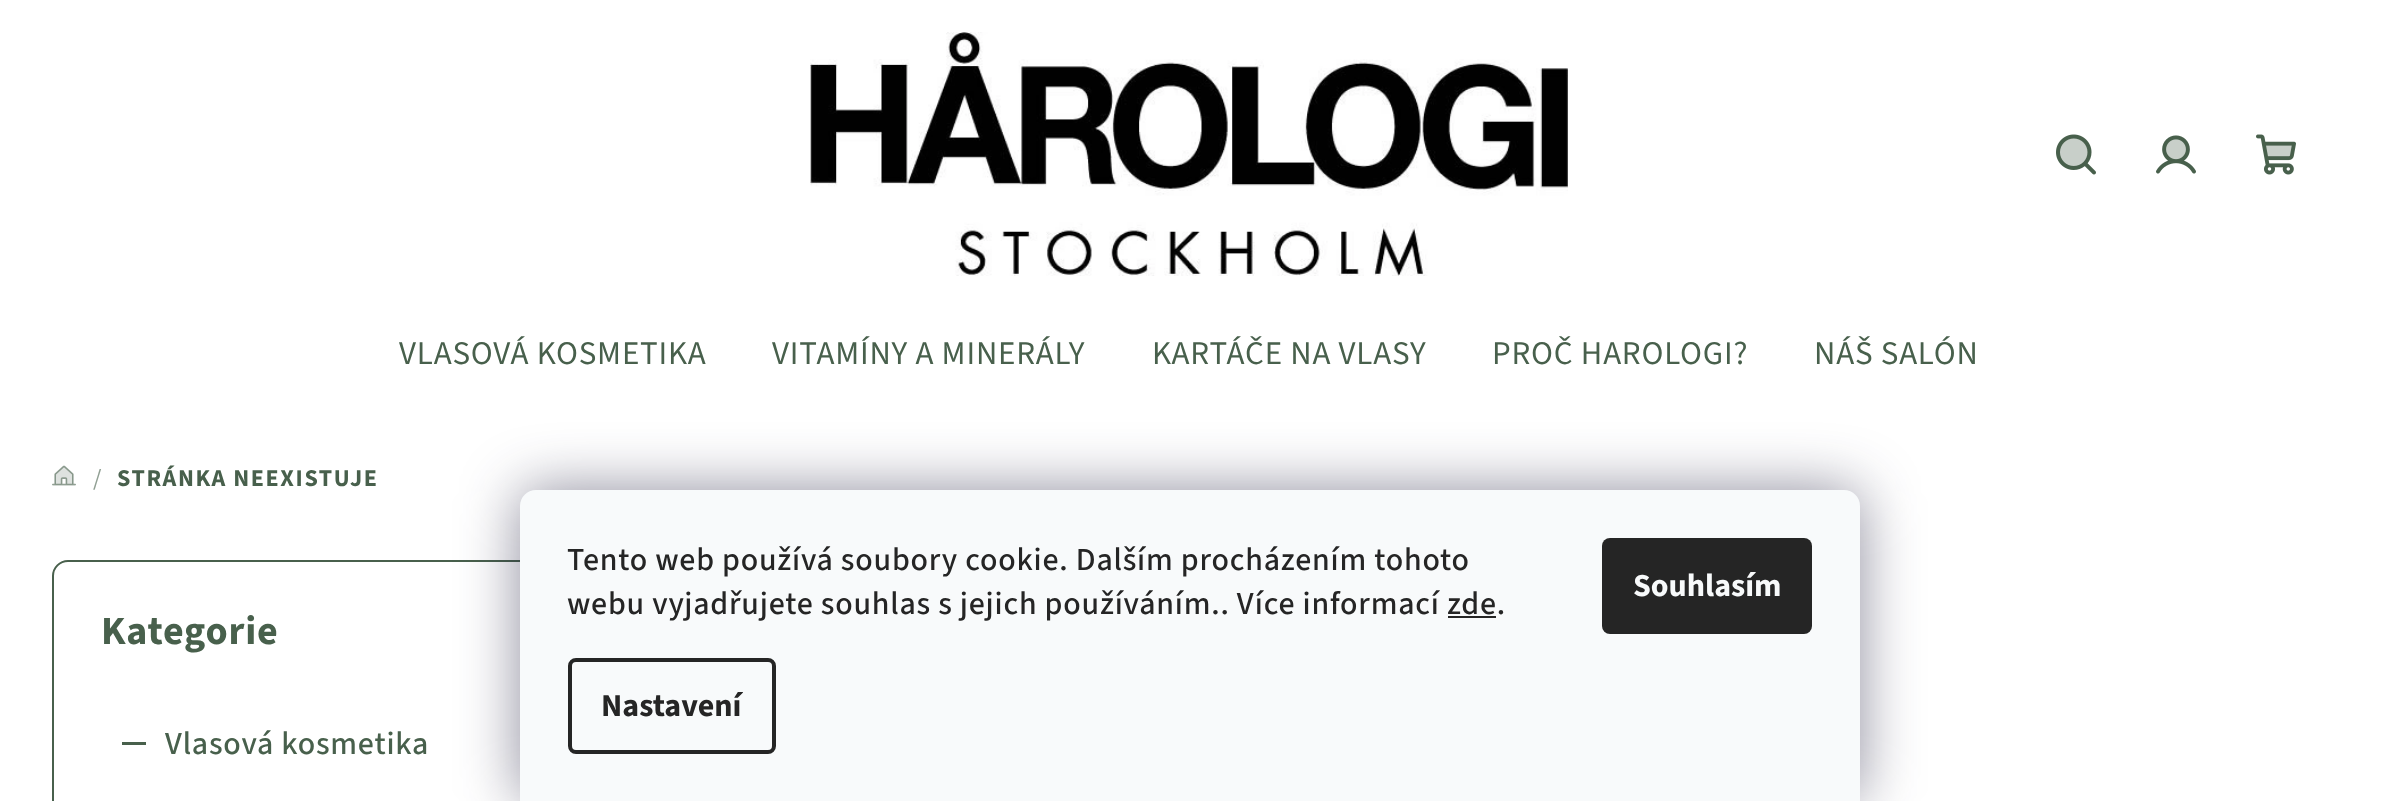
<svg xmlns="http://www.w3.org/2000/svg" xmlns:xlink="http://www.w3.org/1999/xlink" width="2408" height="801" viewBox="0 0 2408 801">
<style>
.cls-1{font:33px 'Source Sans 3';letter-spacing:0.8px;fill:#48604c}
.cls-2{font:24px 'Source Sans 3';letter-spacing:1.6px;fill:#91a094}
.cls-3{font:bold 24px 'Source Sans 3';letter-spacing:1.6px;fill:#48604c}
.cls-4{font:bold 40px 'Source Sans 3';letter-spacing:0.8px;fill:#48604c}
.cls-5{font:500 32px 'Source Sans 3';letter-spacing:0.8px;fill:#48604c}
.cls-6{font:500 32px 'Source Sans 3';letter-spacing:0.8px;fill:#252525}
.cls-7{font:bold 32px 'Source Sans 3';fill:#252525}
.cls-8{font:bold 32px 'Source Sans 3';fill:#f8fafb}
</style>
<rect width="100%" height="100%" fill="#ffffff"/>
<image xlink:href="image0.png" x="810" y="32" width="758" height="244"/>
<image xlink:href="image1.png" x="2056" y="134" width="40" height="41"/>
<path fill="#48604c" fill-opacity="0.3" d="M2073.5 168C2088.5 168 2095.5 148.5 2083 139.5C2080.5 137.5 2077 136.5 2073.5 136.5C2070.5 136.5 2067 137.5 2064.5 139.5C2052.5 148.5 2058.5 168 2073.5 168Z"/>
<image xlink:href="image2.png" x="2156" y="135" width="40" height="39"/>
<path fill="#48604c" fill-opacity="0.3" d="M2176 161C2191.5 161 2191.5 137.5 2176 137.5C2160.5 137.5 2160.5 161 2176 161Z"/>
<image xlink:href="image3.png" x="2256" y="134" width="40" height="41"/>
<path fill="#48604c" fill-opacity="0.3" d="M2266.5 158H2285.5C2290.5 158 2291.5 158.5 2292 153.5L2294 143.5H2263.5Z"/>
<image xlink:href="image4.png" x="52" y="465" width="24" height="21"/>
<image xlink:href="image5.png" x="55" y="466" width="18" height="19"/>
<rect fill="none" stroke="#48604c" stroke-width="2" x="53" y="561" width="714" height="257" rx="15"/>
<rect fill="#48604c" x="122" y="742" width="24" height="3"/>
<rect fill="#1b1939" fill-opacity="0.5" filter="blur(30px)" x="520" y="490" width="1340" height="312" rx="16"/>
<path fill="#f8fafb" d="M536 490H1844C1853 490 1860 497 1860 506V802H520V506C520 497 527 490 536 490Z"/>
<rect fill="#252525" x="1448" y="616" width="48" height="2"/>
<rect fill="none" stroke="#252525" stroke-width="4" x="570" y="660" width="204" height="92" rx="6"/>
<rect fill="#252525" x="1602" y="538" width="210" height="96" rx="8"/>
<text class="cls-1" x="399" y="364">VLASOVÁ KOSMETIKA</text>
<text class="cls-1" x="772" y="364">VITAMÍNY A MINERÁLY</text>
<text class="cls-1" x="1152" y="364">KARTÁČE NA VLASY</text>
<text class="cls-1" x="1492" y="364">PROČ HAROLOGI?</text>
<text class="cls-1" x="1814" y="364">NÁŠ SALÓN</text>
<text class="cls-2" x="93" y="486">/</text>
<text class="cls-3" x="117" y="486">STRÁNKA NEEXISTUJE</text>
<text class="cls-4" x="101" y="644">Kategorie</text>
<text class="cls-5" x="165" y="754">Vlasová kosmetika</text>
<text class="cls-6"><tspan x="567" y="570">Tento web používá soubory cookie. Dalším procházením tohoto</tspan><tspan x="567" y="614">webu vyjadřujete souhlas s jejich používáním.. Více informací zde.</tspan></text>
<text class="cls-7" x="601" y="716">Nastavení</text>
<text class="cls-8" x="1633" y="596">Souhlasím</text>
</svg>
